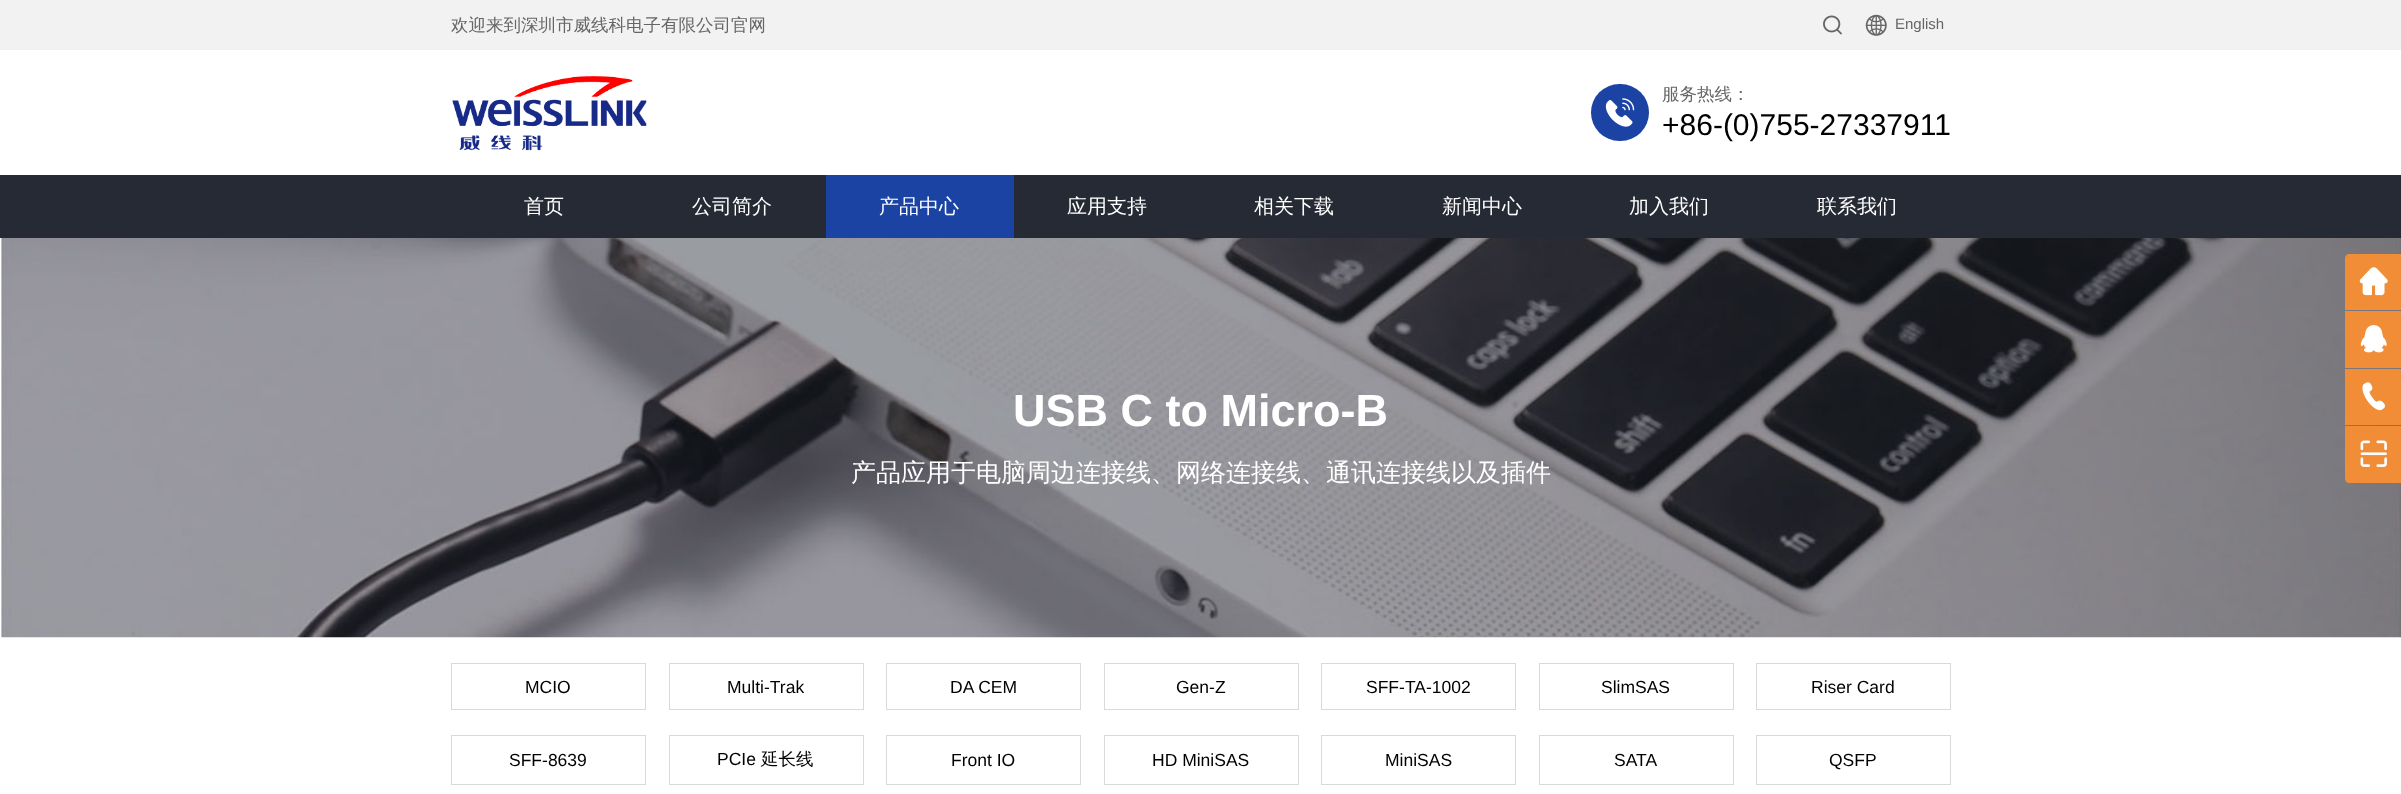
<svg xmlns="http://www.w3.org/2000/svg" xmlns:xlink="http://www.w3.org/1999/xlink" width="2401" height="794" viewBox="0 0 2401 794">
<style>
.cls-1{font:500 17.5px WenQuanYi Zen Hei;fill:#666666}
.cls-2{font:15px Liberation Sans;fill:#666666}
.cls-3{font:30px Liberation Sans;fill:#000000}
.cls-4{font:500 20px WenQuanYi Zen Hei;fill:#ffffff}
.cls-5{font:bold 45px Liberation Sans;fill:#ffffff}
.cls-6{font:500 25px WenQuanYi Zen Hei;fill:#ffffff}
.cls-7{font:17.5px Liberation Sans;fill:#000000}
.cls-8{font:500 17.5px WenQuanYi Zen Hei;fill:#000000}
</style>
<rect width="100%" height="100%" fill="#ffffff"/>
<rect fill="#f2f2f2" x="0" y="0" width="2401" height="50"/>
<image xlink:href="image0.png" x="1823" y="15" width="19" height="20"/>
<image xlink:href="image1.png" x="1865" y="14" width="22" height="22"/>
<image xlink:href="image2.png" x="452" y="76" width="195" height="75"/>
<rect fill="#1a43a4" x="1591" y="84" width="58" height="57" rx="28.5"/>
<image xlink:href="image3.png" x="1605" y="98" width="30" height="29"/>
<rect fill="#262a35" x="0" y="175" width="2401" height="63"/>
<rect fill="#1a43a4" x="826" y="175" width="188" height="63"/>
<image xlink:href="image4.png" x="1" y="238" width="2400" height="400"/>
<path fill="#f18d37" d="M2349 254H2401V310H2345V258C2345 256 2347 254 2349 254Z"/>
<image xlink:href="image5.png" x="2359" y="267" width="29" height="29"/>
<rect fill="#f18d37" x="2345" y="311" width="56" height="57"/>
<image xlink:href="image6.png" x="2360" y="325" width="27" height="28"/>
<rect fill="#f18d37" x="2345" y="369" width="56" height="56"/>
<image xlink:href="image7.png" x="2362" y="382" width="23" height="29"/>
<path fill="#f18d37" d="M2345 426H2401V483H2349C2347 483 2345 481 2345 479Z"/>
<image xlink:href="image8.png" x="2360" y="440" width="27" height="27"/>
<rect fill="none" stroke="#d9d9d9" x="451.5" y="663.5" width="194" height="46"/>
<rect fill="none" stroke="#d9d9d9" x="669.5" y="663.5" width="194" height="46"/>
<rect fill="none" stroke="#d9d9d9" x="886.5" y="663.5" width="194" height="46"/>
<rect fill="none" stroke="#d9d9d9" x="1104.5" y="663.5" width="194" height="46"/>
<rect fill="none" stroke="#d9d9d9" x="1321.5" y="663.5" width="194" height="46"/>
<rect fill="none" stroke="#d9d9d9" x="1539.5" y="663.5" width="194" height="46"/>
<rect fill="none" stroke="#d9d9d9" x="1756.5" y="663.5" width="194" height="46"/>
<rect fill="none" stroke="#d9d9d9" x="451.5" y="735.5" width="194" height="49"/>
<rect fill="none" stroke="#d9d9d9" x="669.5" y="735.5" width="194" height="49"/>
<rect fill="none" stroke="#d9d9d9" x="886.5" y="735.5" width="194" height="49"/>
<rect fill="none" stroke="#d9d9d9" x="1104.5" y="735.5" width="194" height="49"/>
<rect fill="none" stroke="#d9d9d9" x="1321.5" y="735.5" width="194" height="49"/>
<rect fill="none" stroke="#d9d9d9" x="1539.5" y="735.5" width="194" height="49"/>
<rect fill="none" stroke="#d9d9d9" x="1756.5" y="735.5" width="194" height="49"/>
<text class="cls-1" x="451" y="31">欢迎来到深圳市威线科电子有限公司官网</text>
<text class="cls-2" x="1895" y="29">English</text>
<text class="cls-1" x="1662" y="100">服务热线：</text>
<text class="cls-3" x="1662" y="135">+86-(0)755-27337911</text>
<text class="cls-4" x="524" y="213">首页</text>
<text class="cls-4" x="692" y="213">公司简介</text>
<text class="cls-4" x="879" y="213">产品中心</text>
<text class="cls-4" x="1067" y="213">应用支持</text>
<text class="cls-4" x="1254" y="213">相关下载</text>
<text class="cls-4" x="1442" y="213">新闻中心</text>
<text class="cls-4" x="1629" y="213">加入我们</text>
<text class="cls-4" x="1817" y="213">联系我们</text>
<text class="cls-5" x="1013" y="426">USB C to Micro-B</text>
<text class="cls-6" x="851" y="481">产品应用于电脑周边连接线、网络连接线、通讯连接线以及插件</text>
<text class="cls-7" x="525" y="693">MCIO</text>
<text class="cls-7" x="727" y="693">Multi-Trak</text>
<text class="cls-7" x="950" y="693">DA CEM</text>
<text class="cls-7" x="1176" y="693">Gen-Z</text>
<text class="cls-7" x="1366" y="693">SFF-TA-1002</text>
<text class="cls-7" x="1601" y="693">SlimSAS</text>
<text class="cls-7" x="1811" y="693">Riser Card</text>
<text class="cls-7" x="509" y="766">SFF-8639</text>
<text class="cls-7" x="717" y="765">PCIe</text>
<text class="cls-8" x="761" y="765">延长线</text>
<text class="cls-7" x="951" y="766">Front IO</text>
<text class="cls-7" x="1152" y="766">HD MiniSAS</text>
<text class="cls-7" x="1385" y="766">MiniSAS</text>
<text class="cls-7" x="1614" y="766">SATA</text>
<text class="cls-7" x="1829" y="766">QSFP</text>
</svg>
